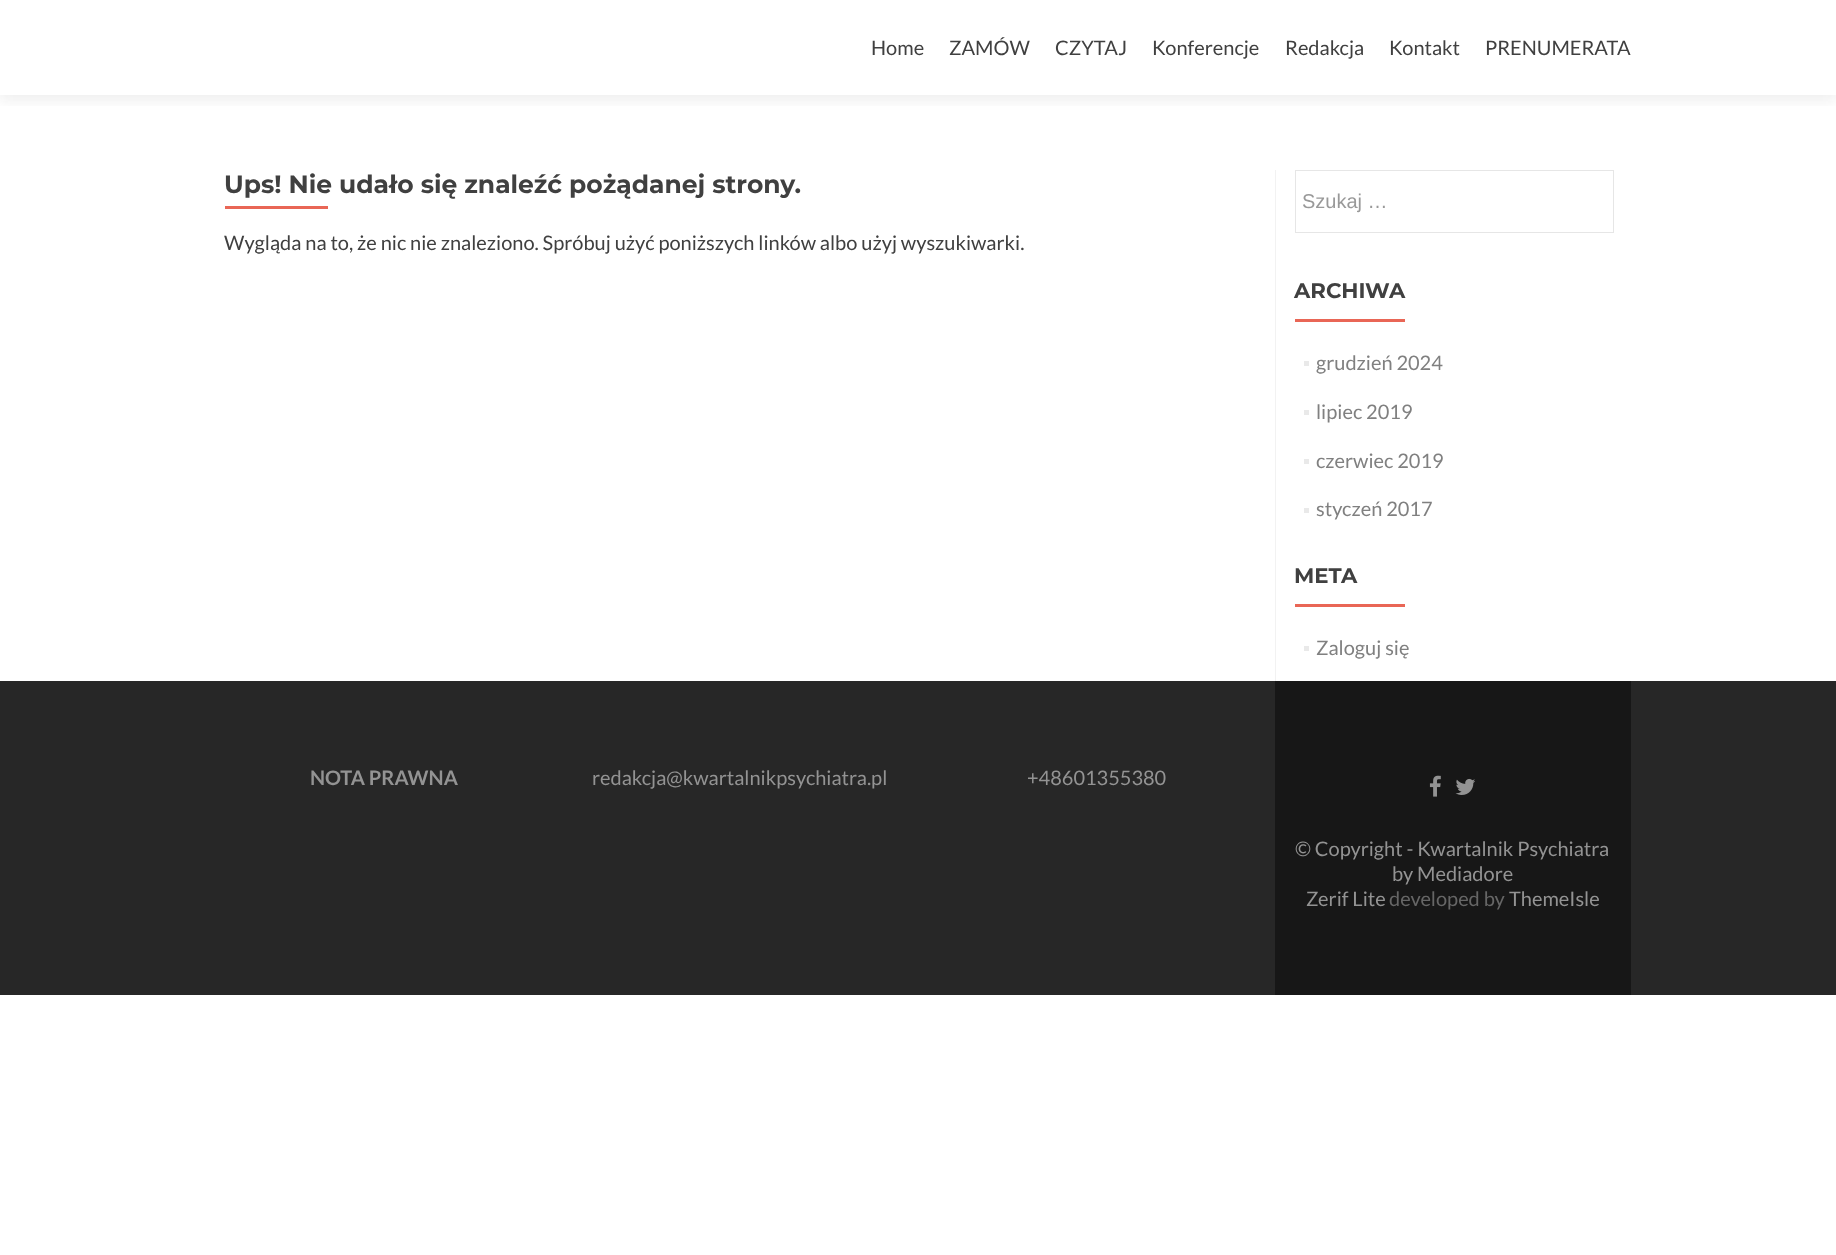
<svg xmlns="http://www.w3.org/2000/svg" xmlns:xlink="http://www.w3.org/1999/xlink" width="1836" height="1255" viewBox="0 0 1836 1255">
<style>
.cls-1{font:20px Lato;fill:#404040}
.cls-2{font:bold 25px Montserrat;fill:#404040}
.cls-3{font:20px Liberation Sans;fill:#999999}
.cls-4{font:bold 21.25px Montserrat;fill:#404040}
.cls-5{font:20px Lato;fill:#808080}
.cls-6{font:bold 20px Lato;fill:#939393}
.cls-7{font:20px Lato;fill:#939393}
.cls-8{font:20px Lato;fill:#666666}
</style>
<defs>
<clipPath id="clip1"><rect x="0" y="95" width="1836" height="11"/></clipPath>
</defs>
<rect width="100%" height="100%" fill="#ffffff"/>
<g clip-path="url(#clip1)">
<rect fill="#323232" fill-opacity="0.08" filter="blur(7px)" x="0" y="6" width="1836" height="95"/>
</g>
<rect fill="#e96656" x="225" y="206" width="103" height="3"/>
<rect fill="#f2f2f2" x="1275" y="170" width="1" height="511"/>
<rect fill="none" stroke="#e6e6e6" x="1295.5" y="170.5" width="318" height="62"/>
<rect fill="#e96656" x="1295" y="319" width="110" height="3"/>
<rect fill="#e9e9e9" x="1304" y="361" width="5" height="5"/>
<rect fill="#e9e9e9" x="1304" y="410" width="5" height="5"/>
<rect fill="#e9e9e9" x="1304" y="459" width="5" height="5"/>
<rect fill="#e9e9e9" x="1304" y="508" width="5" height="5"/>
<rect fill="#e96656" x="1295" y="604" width="110" height="3"/>
<rect fill="#e9e9e9" x="1304" y="646" width="5" height="5"/>
<rect fill="#272727" x="0" y="681" width="1836" height="314"/>
<rect fill="#171717" x="1275" y="681" width="356" height="314"/>
<image xlink:href="image0.png" x="1429" y="775" width="12" height="22"/>
<image xlink:href="image1.png" x="1455" y="778" width="20" height="17"/>
<text class="cls-1" x="871" y="55">Home</text>
<text class="cls-1" x="949" y="55">ZAMÓW</text>
<text class="cls-1" x="1055" y="55">CZYTAJ</text>
<text class="cls-1" x="1152" y="55">Konferencje</text>
<text class="cls-1" x="1285" y="55">Redakcja</text>
<text class="cls-1" x="1389" y="55">Kontakt</text>
<text class="cls-1" x="1485" y="55">PRENUMERATA</text>
<text class="cls-2" x="224" y="193">Ups! Nie udało się znaleźć pożądanej strony.</text>
<text class="cls-1" x="224" y="250">Wygląda na to, że nic nie znaleziono. Spróbuj użyć poniższych linków albo użyj wyszukiwarki.</text>
<text class="cls-3" x="1302" y="208">Szukaj …</text>
<text class="cls-4" x="1294" y="298">ARCHIWA</text>
<text class="cls-5" x="1316" y="370">grudzień 2024</text>
<text class="cls-5" x="1316" y="419">lipiec 2019</text>
<text class="cls-5" x="1316" y="468">czerwiec 2019</text>
<text class="cls-5" x="1316" y="516">styczeń 2017</text>
<text class="cls-4" x="1294" y="583">META</text>
<text class="cls-5" x="1316" y="655">Zaloguj się</text>
<text class="cls-6" x="310" y="785">NOTA PRAWNA</text>
<text class="cls-7" x="592" y="785">redakcja@kwartalnikpsychiatra.pl</text>
<text class="cls-7" x="1027" y="785">+48601355380</text>
<text class="cls-7" x="1295" y="856">© Copyright - Kwartalnik Psychiatra</text>
<text class="cls-7" x="1392" y="881">by Mediadore</text>
<text class="cls-7" x="1306" y="906">Zerif Lite</text>
<text class="cls-8" x="1389" y="906">developed by</text>
<text class="cls-7" x="1509" y="906">ThemeIsle</text>
</svg>
